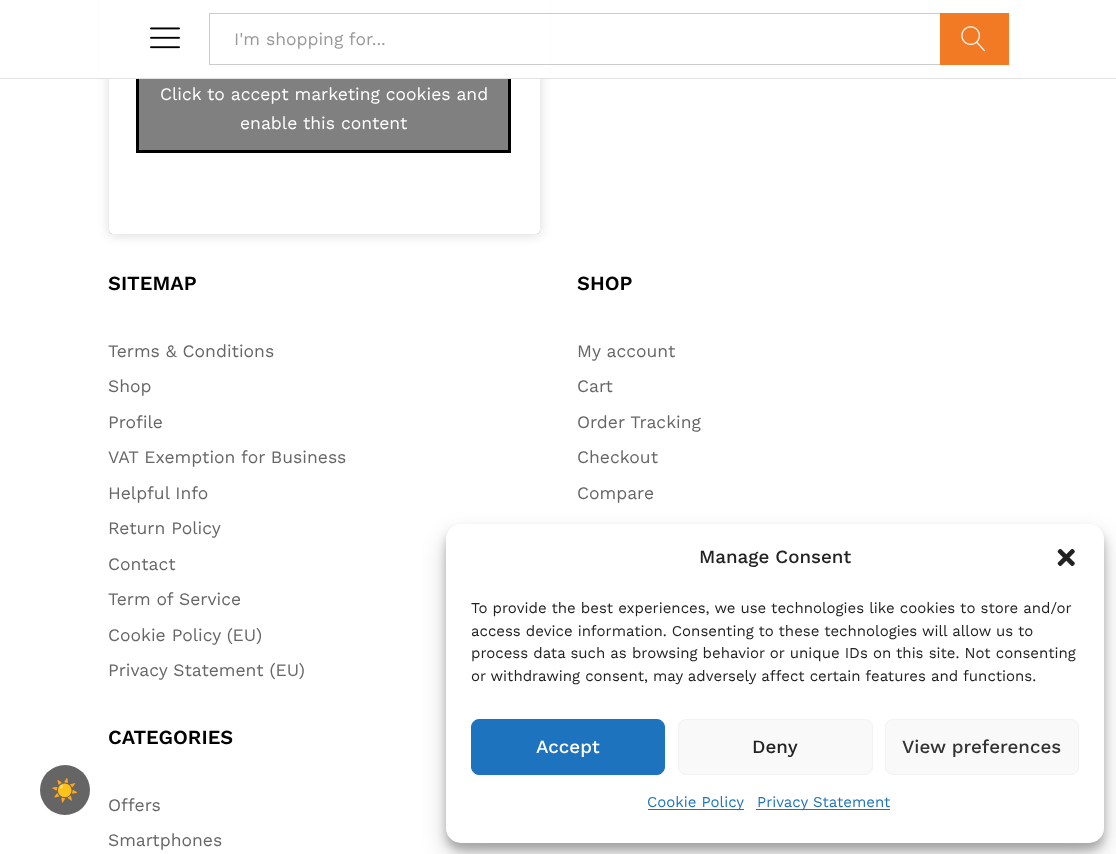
<svg xmlns="http://www.w3.org/2000/svg" xmlns:xlink="http://www.w3.org/1999/xlink" width="1116" height="854" viewBox="0 0 1116 854">
<style>
.cls-1{font:bold 22px Noto Color Emoji;fill:#eeeeee}
.cls-2{font:17.5px Work Sans;fill:#999999}
.cls-3{font:17.5px Work Sans;fill:#ffffff}
.cls-4{font:600 20px Work Sans;fill:#000000}
.cls-5{font:17.5px Work Sans;fill:#666666}
.cls-6{font:500 18.75px Work Sans;fill:#222222}
.cls-7{font:15px Work Sans;fill:#222222}
.cls-8{font:500 18.75px Work Sans;fill:#ffffff}
.cls-9{font:500 18.75px Work Sans;fill:#333333}
.cls-10{font:15px Work Sans;fill:#1e73be}
</style>
<rect width="100%" height="100%" fill="#ffffff"/>
<circle fill="#656565" cx="65" cy="790" r="25"/>
<rect fill="#000000" fill-opacity="0.15" filter="blur(6px)" x="109" y="-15" width="431" height="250" rx="4"/>
<rect fill="#000000" fill-opacity="0.5" filter="blur(0.5px)" x="109" y="-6" width="431" height="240" rx="4"/>
<rect fill="#ffffff" x="109" y="-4" width="431" height="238" rx="4"/>
<rect fill="#808080" x="139" y="79" width="369" height="71"/>
<rect fill="none" stroke="#000000" stroke-width="3" x="137.5" y="66.5" width="372" height="85"/>
<rect fill="#ffffff" x="100" y="0" width="449" height="78"/>
<rect fill="#e1e1e1" x="0" y="78" width="1116" height="1"/>
<image xlink:href="image0.png" x="150" y="27" width="30" height="22"/>
<rect fill="#cccccc" x="209" y="13" width="731" height="1"/>
<rect fill="#cccccc" x="209" y="64" width="731" height="1"/>
<rect fill="#cccccc" x="209" y="13" width="1" height="52"/>
<rect fill="#f27a24" x="940" y="13" width="69" height="52"/>
<image xlink:href="image1.png" x="961" y="26" width="24" height="26"/>
<rect fill="#000000" fill-opacity="0.23" filter="blur(4px)" x="446" y="531" width="658" height="319" rx="15"/>
<rect fill="#000000" fill-opacity="0.19" filter="blur(12.5px)" x="446" y="536" width="658" height="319" rx="15"/>
<rect fill="#ffffff" x="446" y="524" width="658" height="319" rx="15"/>
<image xlink:href="image2.png" x="1057" y="548" width="18" height="19"/>
<rect fill="#1e73be" stroke="#1e73be" x="471.5" y="719.5" width="193" height="55" rx="7.5"/>
<rect fill="#f9f9f9" stroke="#f2f2f2" x="678.5" y="719.5" width="194" height="55" rx="7.5"/>
<rect fill="#f9f9f9" stroke="#f2f2f2" x="885.5" y="719.5" width="193" height="55" rx="7.5"/>
<rect fill="#1e73be" x="648" y="809" width="96" height="1"/>
<rect fill="#1e73be" x="756" y="809" width="134" height="1"/>
<text class="cls-1" x="51" y="798">☀️</text>
<text class="cls-2" x="234" y="45">I'm shopping for...</text>
<text class="cls-3" x="160" y="100">Click to accept marketing cookies and</text>
<text class="cls-3" x="240" y="129">enable this content</text>
<text class="cls-4" x="108" y="290">SITEMAP</text>
<text class="cls-5" x="108" y="357">Terms &amp; Conditions</text>
<text class="cls-5" x="108" y="392">Shop</text>
<text class="cls-5" x="108" y="428">Profile</text>
<text class="cls-5" x="108" y="463">VAT Exemption for Business</text>
<text class="cls-5" x="108" y="499">Helpful Info</text>
<text class="cls-5" x="108" y="534">Return Policy</text>
<text class="cls-5" x="108" y="570">Contact</text>
<text class="cls-5" x="108" y="605">Term of Service</text>
<text class="cls-5" x="108" y="641">Cookie Policy (EU)</text>
<text class="cls-5" x="108" y="676">Privacy Statement (EU)</text>
<text class="cls-4" x="577" y="290">SHOP</text>
<text class="cls-5" x="577" y="357">My account</text>
<text class="cls-5" x="577" y="392">Cart</text>
<text class="cls-5" x="577" y="428">Order Tracking</text>
<text class="cls-5" x="577" y="463">Checkout</text>
<text class="cls-5" x="577" y="499">Compare</text>
<text class="cls-4" x="108" y="744">CATEGORIES</text>
<text class="cls-5" x="108" y="811">Offers</text>
<text class="cls-5" x="108" y="846">Smartphones</text>
<text class="cls-6" x="699" y="563">Manage Consent</text>
<text class="cls-7"><tspan x="471" y="613">To provide the best experiences, we use technologies like cookies to store and/or</tspan><tspan x="471" y="636">access device information. Consenting to these technologies will allow us to</tspan><tspan x="471" y="658">process data such as browsing behavior or unique IDs on this site. Not consenting</tspan><tspan x="471" y="681">or withdrawing consent, may adversely affect certain features and functions.</tspan></text>
<text class="cls-8" x="536" y="753">Accept</text>
<text class="cls-6" x="752" y="753">Deny</text>
<text class="cls-9" x="902" y="753">View preferences</text>
<text class="cls-10" x="647" y="807">Cookie Policy</text>
<text class="cls-10" x="757" y="807">Privacy Statement</text>
</svg>
